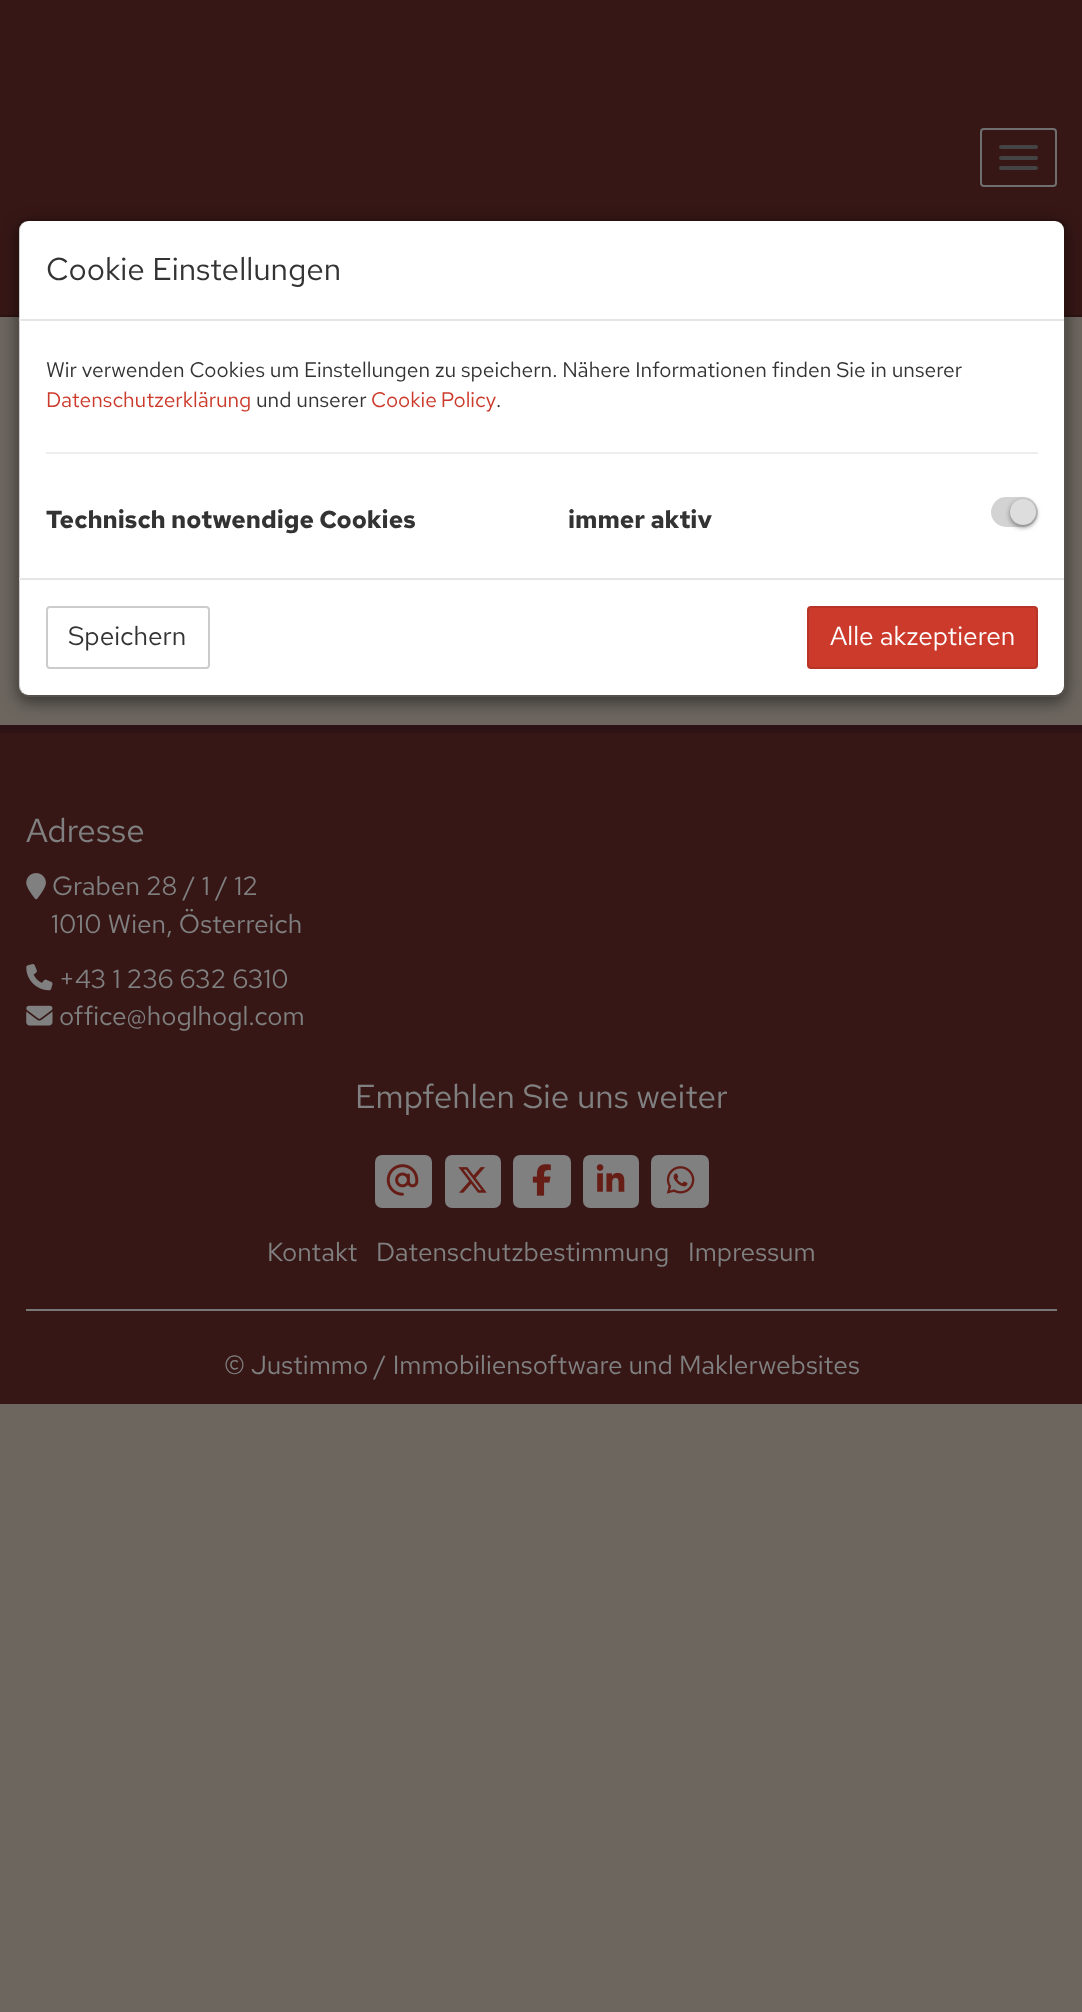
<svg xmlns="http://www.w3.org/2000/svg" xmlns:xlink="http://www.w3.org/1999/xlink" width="1082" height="2012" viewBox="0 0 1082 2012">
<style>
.cls-1{font:31.5px Red Hat Text;fill:#333333}
.cls-2{font:21px Red Hat Text;fill:#333333}
.cls-3{font:21px Red Hat Text;fill:#cc3a2b}
.cls-4{font:bold 24.5px Red Hat Text;fill:#333333}
.cls-5{font:26.25px Red Hat Text;fill:#333333}
.cls-6{font:26.25px Red Hat Text;fill:#ffffff}
.cls-7{font:33.25px Red Hat Text;fill:#808080}
.cls-8{font:26.25px Red Hat Text;fill:#808080}
</style>
<defs>
<clipPath id="clip1"><path d="M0 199H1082V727H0ZM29 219H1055C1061 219 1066 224 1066 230V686C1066 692 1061 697 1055 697H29C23 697 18 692 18 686V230C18 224 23 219 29 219Z" clip-rule="evenodd"/></clipPath>
</defs>
<rect width="100%" height="100%" fill="#6c665f"/>
<rect fill="#361716" x="0" y="0" width="1082" height="315"/>
<rect fill="#2d1313" x="0" y="315" width="1082" height="2"/>
<rect fill="none" stroke="#6f6f6f" stroke-width="2" x="981" y="129" width="75" height="57" rx="3"/>
<rect fill="#444444" x="999" y="145" width="39" height="4" rx="2"/>
<rect fill="#444444" x="999" y="156" width="39" height="4" rx="2"/>
<rect fill="#444444" x="999" y="166" width="39" height="4" rx="2"/>
<rect fill="#2d1313" x="0" y="725" width="1082" height="8"/>
<g clip-path="url(#clip1)">
<rect fill="#000000" fill-opacity="0.5" filter="blur(8px)" x="18" y="224" width="1048" height="478" rx="11"/>
</g>
<rect fill="#ffffff" x="19" y="221" width="1045" height="474" rx="9"/>
<rect fill="none" stroke="#000000" stroke-opacity="0.2" stroke-width="2" x="19" y="220" width="1046" height="476" rx="10"/>
<rect fill="#e5e5e5" x="19" y="319" width="1045" height="2"/>
<rect fill="#eeeeee" x="46" y="452" width="992" height="2"/>
<rect fill="#d3d3d3" stroke="#d3d3d3" stroke-width="2" x="992" y="498" width="45" height="28" rx="14"/>
<rect fill="#777777" filter="blur(2.5px)" x="1010" y="501" width="26" height="26" rx="13"/>
<circle fill="#dddddd" cx="1023" cy="512" r="13"/>
<rect fill="#e5e5e5" x="19" y="578" width="1045" height="2"/>
<rect fill="none" stroke="#cccccc" stroke-width="2" x="47" y="607" width="162" height="61" rx="3"/>
<rect fill="#cc3a2b" stroke="#b73427" stroke-width="2" x="808" y="607" width="229" height="61" rx="3"/>
<rect fill="#361716" x="0" y="733" width="1082" height="671"/>
<image xlink:href="image0.png" x="26" y="873" width="20" height="27"/>
<image xlink:href="image1.png" x="26" y="964" width="27" height="27"/>
<image xlink:href="image2.png" x="26" y="1005" width="27" height="21"/>
<rect fill="#808080" x="375" y="1155" width="57" height="53" rx="7"/>
<image xlink:href="image3.png" x="386" y="1164" width="33" height="32"/>
<rect fill="#808080" x="445" y="1155" width="56" height="53" rx="7"/>
<image xlink:href="image4.png" x="458" y="1167" width="29" height="26"/>
<rect fill="#808080" x="513" y="1155" width="58" height="53" rx="7"/>
<image xlink:href="image5.png" x="532" y="1164" width="19" height="32"/>
<rect fill="#808080" x="583" y="1155" width="56" height="53" rx="7"/>
<image xlink:href="image6.png" x="596" y="1164" width="29" height="28"/>
<rect fill="#808080" x="651" y="1155" width="58" height="53" rx="7"/>
<image xlink:href="image7.png" x="666" y="1166" width="29" height="28"/>
<rect fill="#777777" x="26" y="1309" width="1031" height="2"/>
<text class="cls-1" x="46" y="280">Cookie Einstellungen</text>
<text class="cls-2" x="46" y="377">Wir verwenden Cookies um Einstellungen zu speichern. Nähere Informationen finden Sie in unserer</text>
<text class="cls-3" x="46" y="407">Datenschutzerklärung</text>
<text class="cls-2" x="256" y="407">und unserer</text>
<text class="cls-3" x="371" y="407" word-spacing="-1">Cookie Policy</text>
<text class="cls-2" x="496" y="407">.</text>
<text class="cls-4" x="46" y="528">Technisch notwendige Cookies</text>
<text class="cls-4" x="568" y="528">immer aktiv</text>
<text class="cls-5" x="68" y="645">Speichern</text>
<text class="cls-6" x="830" y="645">Alle akzeptieren</text>
<text class="cls-7" x="26" y="842">Adresse</text>
<text class="cls-8" x="52" y="895">Graben 28 / 1 / 12</text>
<text class="cls-8" x="51" y="933">1010 Wien, Österreich</text>
<text class="cls-8"><tspan x="59" y="988">+43 1 236 632 6310</tspan><tspan x="59" y="1025">office@hoglhogl.com</tspan></text>
<text class="cls-7" x="355" y="1108">Empfehlen Sie uns weiter</text>
<text class="cls-8" x="267" y="1261">Kontakt</text>
<text class="cls-8" x="376" y="1261">Datenschutzbestimmung</text>
<text class="cls-8" x="688" y="1261">Impressum</text>
<text class="cls-8" x="224" y="1374">© Justimmo / Immobiliensoftware und Maklerwebsites</text>
</svg>
